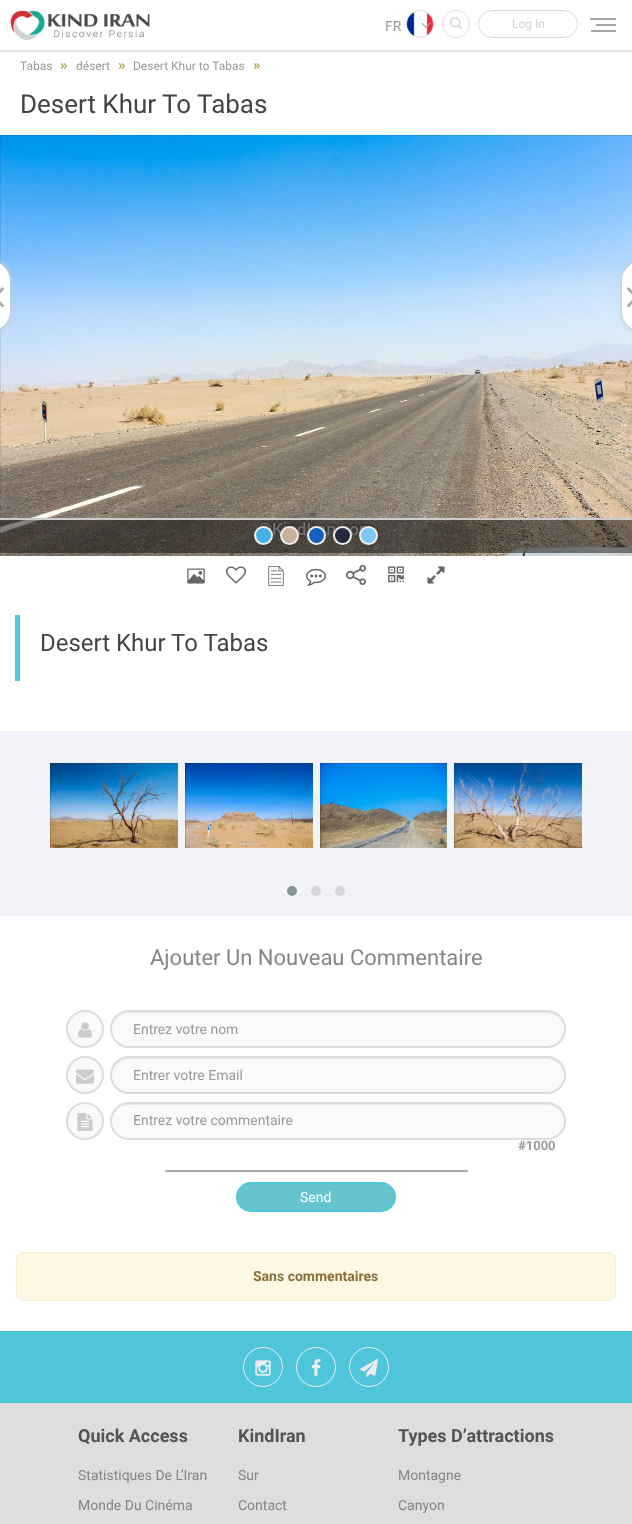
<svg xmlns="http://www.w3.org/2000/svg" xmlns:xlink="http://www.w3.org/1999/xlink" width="632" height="1524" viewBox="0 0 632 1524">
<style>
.cls-1{font:14px Roboto;fill:#999999}
.cls-2{font:12px Roboto;fill:#d1d2d1}
.cls-3{font:12px Roboto;fill:#999999}
.cls-4{font:bold 15px Roboto;fill:#b7a959}
.cls-5{font:26px Roboto;fill:#444444}
.cls-6{font:24px Roboto;fill:#444444}
.cls-7{font:22px Roboto;fill:#848584}
.cls-8{font:bold 13px Roboto;fill:#999999}
.cls-9{font:14px Roboto;fill:#ffffff}
.cls-10{font:bold 14px Roboto;fill:#8a6d3b}
.cls-11{font:bold 18px Roboto;fill:#535453}
.cls-12{font:14px Roboto;fill:#848584}
</style>
<defs>
<clipPath id="clip1"><rect x="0" y="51" width="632" height="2"/></clipPath>
</defs>
<rect width="100%" height="100%" fill="#ffffff"/>
<g clip-path="url(#clip1)">
<rect fill="#000000" fill-opacity="0.12" filter="blur(1px)" x="0" y="1" width="632" height="51"/>
</g>
<rect fill="#e3e4e5" x="0" y="50" width="632" height="1"/>
<image xlink:href="image0.png" x="10" y="10" width="140" height="30"/>
<circle fill="none" stroke="#dadbda" cx="420" cy="24" r="13.5"/>
<image xlink:href="image1.png" x="407" y="11" width="26" height="26"/>
<image xlink:href="image2.png" x="421" y="22" width="10" height="6"/>
<circle fill="none" stroke="#dadbda" cx="456" cy="24" r="13.5"/>
<image xlink:href="image3.png" x="450" y="17" width="12" height="12"/>
<rect fill="none" stroke="#dadbda" x="478.5" y="10.5" width="99" height="27" rx="13.5"/>
<rect fill="#a6a6a6" x="596" y="24" width="20" height="2"/>
<rect fill="#a6a6a6" x="590" y="18" width="26" height="2"/>
<rect fill="#a6a6a6" x="591" y="30" width="25" height="2"/>
<image xlink:href="image4.png" x="0" y="135" width="632" height="421"/>
<rect fill="#0a0a0a" fill-opacity="0.5" x="0" y="520" width="632" height="33"/>
<rect fill="#cccccc" x="0" y="518" width="632" height="2"/>
<rect fill="#eeeeee" filter="blur(0.5px)" x="254" y="526" width="19" height="19" rx="9.5"/>
<circle fill="#45b1e8" cx="263.5" cy="535.5" r="7.5"/>
<rect fill="#eeeeee" filter="blur(0.5px)" x="280" y="526" width="19" height="19" rx="9.5"/>
<circle fill="#c9b29b" cx="289.5" cy="535.5" r="7.5"/>
<rect fill="#eeeeee" filter="blur(0.5px)" x="307" y="526" width="19" height="19" rx="9.5"/>
<circle fill="#1560bd" cx="316.5" cy="535.5" r="7.5"/>
<rect fill="#eeeeee" filter="blur(0.5px)" x="333" y="526" width="19" height="19" rx="9.5"/>
<circle fill="#26283b" cx="342.5" cy="535.5" r="7.5"/>
<rect fill="#eeeeee" filter="blur(0.5px)" x="359" y="526" width="19" height="19" rx="9.5"/>
<circle fill="#7dc8f7" cx="368.5" cy="535.5" r="7.5"/>
<rect fill="#cccccc" filter="blur(2px)" x="-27" y="260" width="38" height="72" rx="21"/>
<path fill="#ffffff" d="M0 261H-10C1 261 10 270 10 281V311C10 322 1 331-10 331H0Z"/>
<image xlink:href="image5.png" x="0" y="287" width="5" height="21"/>
<rect fill="#cccccc" filter="blur(2px)" x="621" y="260" width="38" height="72" rx="21"/>
<path fill="#ffffff" d="M642 261H632V331H642C631 331 622 322 622 311V281C622 270 631 261 642 261Z"/>
<image xlink:href="image6.png" x="626" y="287" width="6" height="21"/>
<image xlink:href="image7.png" x="187" y="568" width="18" height="16"/>
<image xlink:href="image8.png" x="226" y="566" width="20" height="18"/>
<image xlink:href="image9.png" x="268" y="566" width="16" height="20"/>
<image xlink:href="image10.png" x="306" y="568" width="20" height="18"/>
<image xlink:href="image11.png" x="346" y="565" width="20" height="20"/>
<image xlink:href="image12.png" x="388" y="566" width="16" height="17"/>
<image xlink:href="image13.png" x="427" y="566" width="18" height="18"/>
<rect fill="#50c6db" x="15" y="615" width="5" height="66"/>
<rect fill="#f2f3f8" x="0" y="731" width="632" height="185"/>
<image xlink:href="image14.png" x="50" y="763" width="128" height="85"/>
<image xlink:href="image15.png" x="185" y="763" width="128" height="85"/>
<image xlink:href="image16.png" x="320" y="763" width="127" height="85"/>
<image xlink:href="image17.png" x="454" y="763" width="128" height="85"/>
<circle fill="#869791" cx="292" cy="891" r="5"/>
<circle fill="#d6d6d6" cx="316" cy="891" r="5"/>
<circle fill="#d6d6d6" cx="340" cy="891" r="5"/>
<circle fill="#fafafa" stroke="#dddddd" stroke-width="2" cx="85" cy="1029" r="18"/>
<image xlink:href="image18.png" x="78" y="1022" width="14" height="16"/>
<rect fill="#fafafa" x="110" y="1010" width="456" height="38" rx="19"/>
<path fill="#e7e7e7" d="M129 1013H547C556 1013 564 1021 564 1030C564 1021 558 1014 550 1012H129C120 1012 112 1020 112 1030C112 1021 120 1013 129 1013Z"/>
<rect fill="none" stroke="#dddddd" stroke-width="2" x="111" y="1011" width="454" height="36" rx="18"/>
<circle fill="#fafafa" stroke="#dddddd" stroke-width="2" cx="85" cy="1075" r="18"/>
<image xlink:href="image19.png" x="76" y="1069" width="18" height="15"/>
<rect fill="#fafafa" x="110" y="1056" width="456" height="38" rx="19"/>
<path fill="#e7e7e7" d="M129 1059H547C556 1059 564 1067 564 1076C564 1067 558 1060 550 1058H129C120 1058 112 1066 112 1076C112 1067 120 1059 129 1059Z"/>
<rect fill="none" stroke="#dddddd" stroke-width="2" x="111" y="1057" width="454" height="36" rx="18"/>
<circle fill="#fafafa" stroke="#dddddd" stroke-width="2" cx="85" cy="1121" r="18"/>
<image xlink:href="image20.png" x="77" y="1113" width="16" height="18"/>
<rect fill="#fafafa" x="110" y="1102" width="456" height="38" rx="19"/>
<path fill="#e7e7e7" d="M129 1105H547C556 1105 564 1113 564 1122C564 1113 558 1106 550 1104H129C120 1104 112 1112 112 1122C112 1113 120 1105 129 1105Z"/>
<rect fill="none" stroke="#dddddd" stroke-width="2" x="111" y="1103" width="454" height="36" rx="18"/>
<rect fill="#aaaaaa" x="165" y="1170" width="303" height="2" rx="1"/>
<rect fill="#66c4ce" stroke="#50c6db" stroke-width="2" x="237" y="1183" width="158" height="28" rx="14"/>
<rect fill="#fcf8e3" stroke="#faebcc" x="16.5" y="1252.5" width="599" height="48" rx="7.5"/>
<rect fill="#dfdedf" x="0" y="1403" width="632" height="121"/>
<rect fill="#50c6db" x="0" y="1331" width="632" height="72"/>
<circle fill="none" stroke="#efeeef" cx="263" cy="1367" r="19.5"/>
<image xlink:href="image21.png" x="255" y="1360" width="16" height="16"/>
<circle fill="none" stroke="#efeeef" cx="316" cy="1367" r="19.5"/>
<image xlink:href="image22.png" x="311" y="1359" width="10" height="17"/>
<circle fill="none" stroke="#efeeef" cx="369" cy="1367" r="19.5"/>
<image xlink:href="image23.png" x="360" y="1359" width="18" height="18"/>
<text class="cls-1" x="385" y="31">FR</text>
<text class="cls-2" x="512" y="28">Log In</text>
<text class="cls-3" x="20" y="70">Tabas</text>
<text class="cls-4" x="60" y="70">»</text>
<text class="cls-3" x="76" y="70">désert</text>
<text class="cls-4" x="118" y="70">»</text>
<text class="cls-3" x="133" y="70">Desert Khur to Tabas</text>
<text class="cls-4" x="253" y="70">»</text>
<text class="cls-5" x="20" y="113">Desert Khur To Tabas</text>
<text class="cls-6" x="40" y="651">Desert Khur To Tabas</text>
<text class="cls-7" x="150" y="965">Ajouter Un Nouveau Commentaire</text>
<text class="cls-1" x="133" y="1034">Entrez votre nom</text>
<text class="cls-1" x="133" y="1080">Entrer votre Email</text>
<text class="cls-1" x="133" y="1125">Entrez votre commentaire</text>
<text class="cls-8" x="518" y="1150">#1000</text>
<text class="cls-9" x="300" y="1202">Send</text>
<text class="cls-10" x="253" y="1281">Sans commentaires</text>
<text class="cls-11" x="78" y="1442">Quick Access</text>
<text class="cls-12" x="78" y="1480">Statistiques De L’Iran</text>
<text class="cls-12" x="78" y="1510">Monde Du Cinéma</text>
<text class="cls-11" x="238" y="1442">KindIran</text>
<text class="cls-12" x="238" y="1480">Sur</text>
<text class="cls-12" x="238" y="1510">Contact</text>
<text class="cls-11" x="398" y="1442">Types D’attractions</text>
<text class="cls-12" x="398" y="1480">Montagne</text>
<text class="cls-12" x="398" y="1510">Canyon</text>
</svg>
